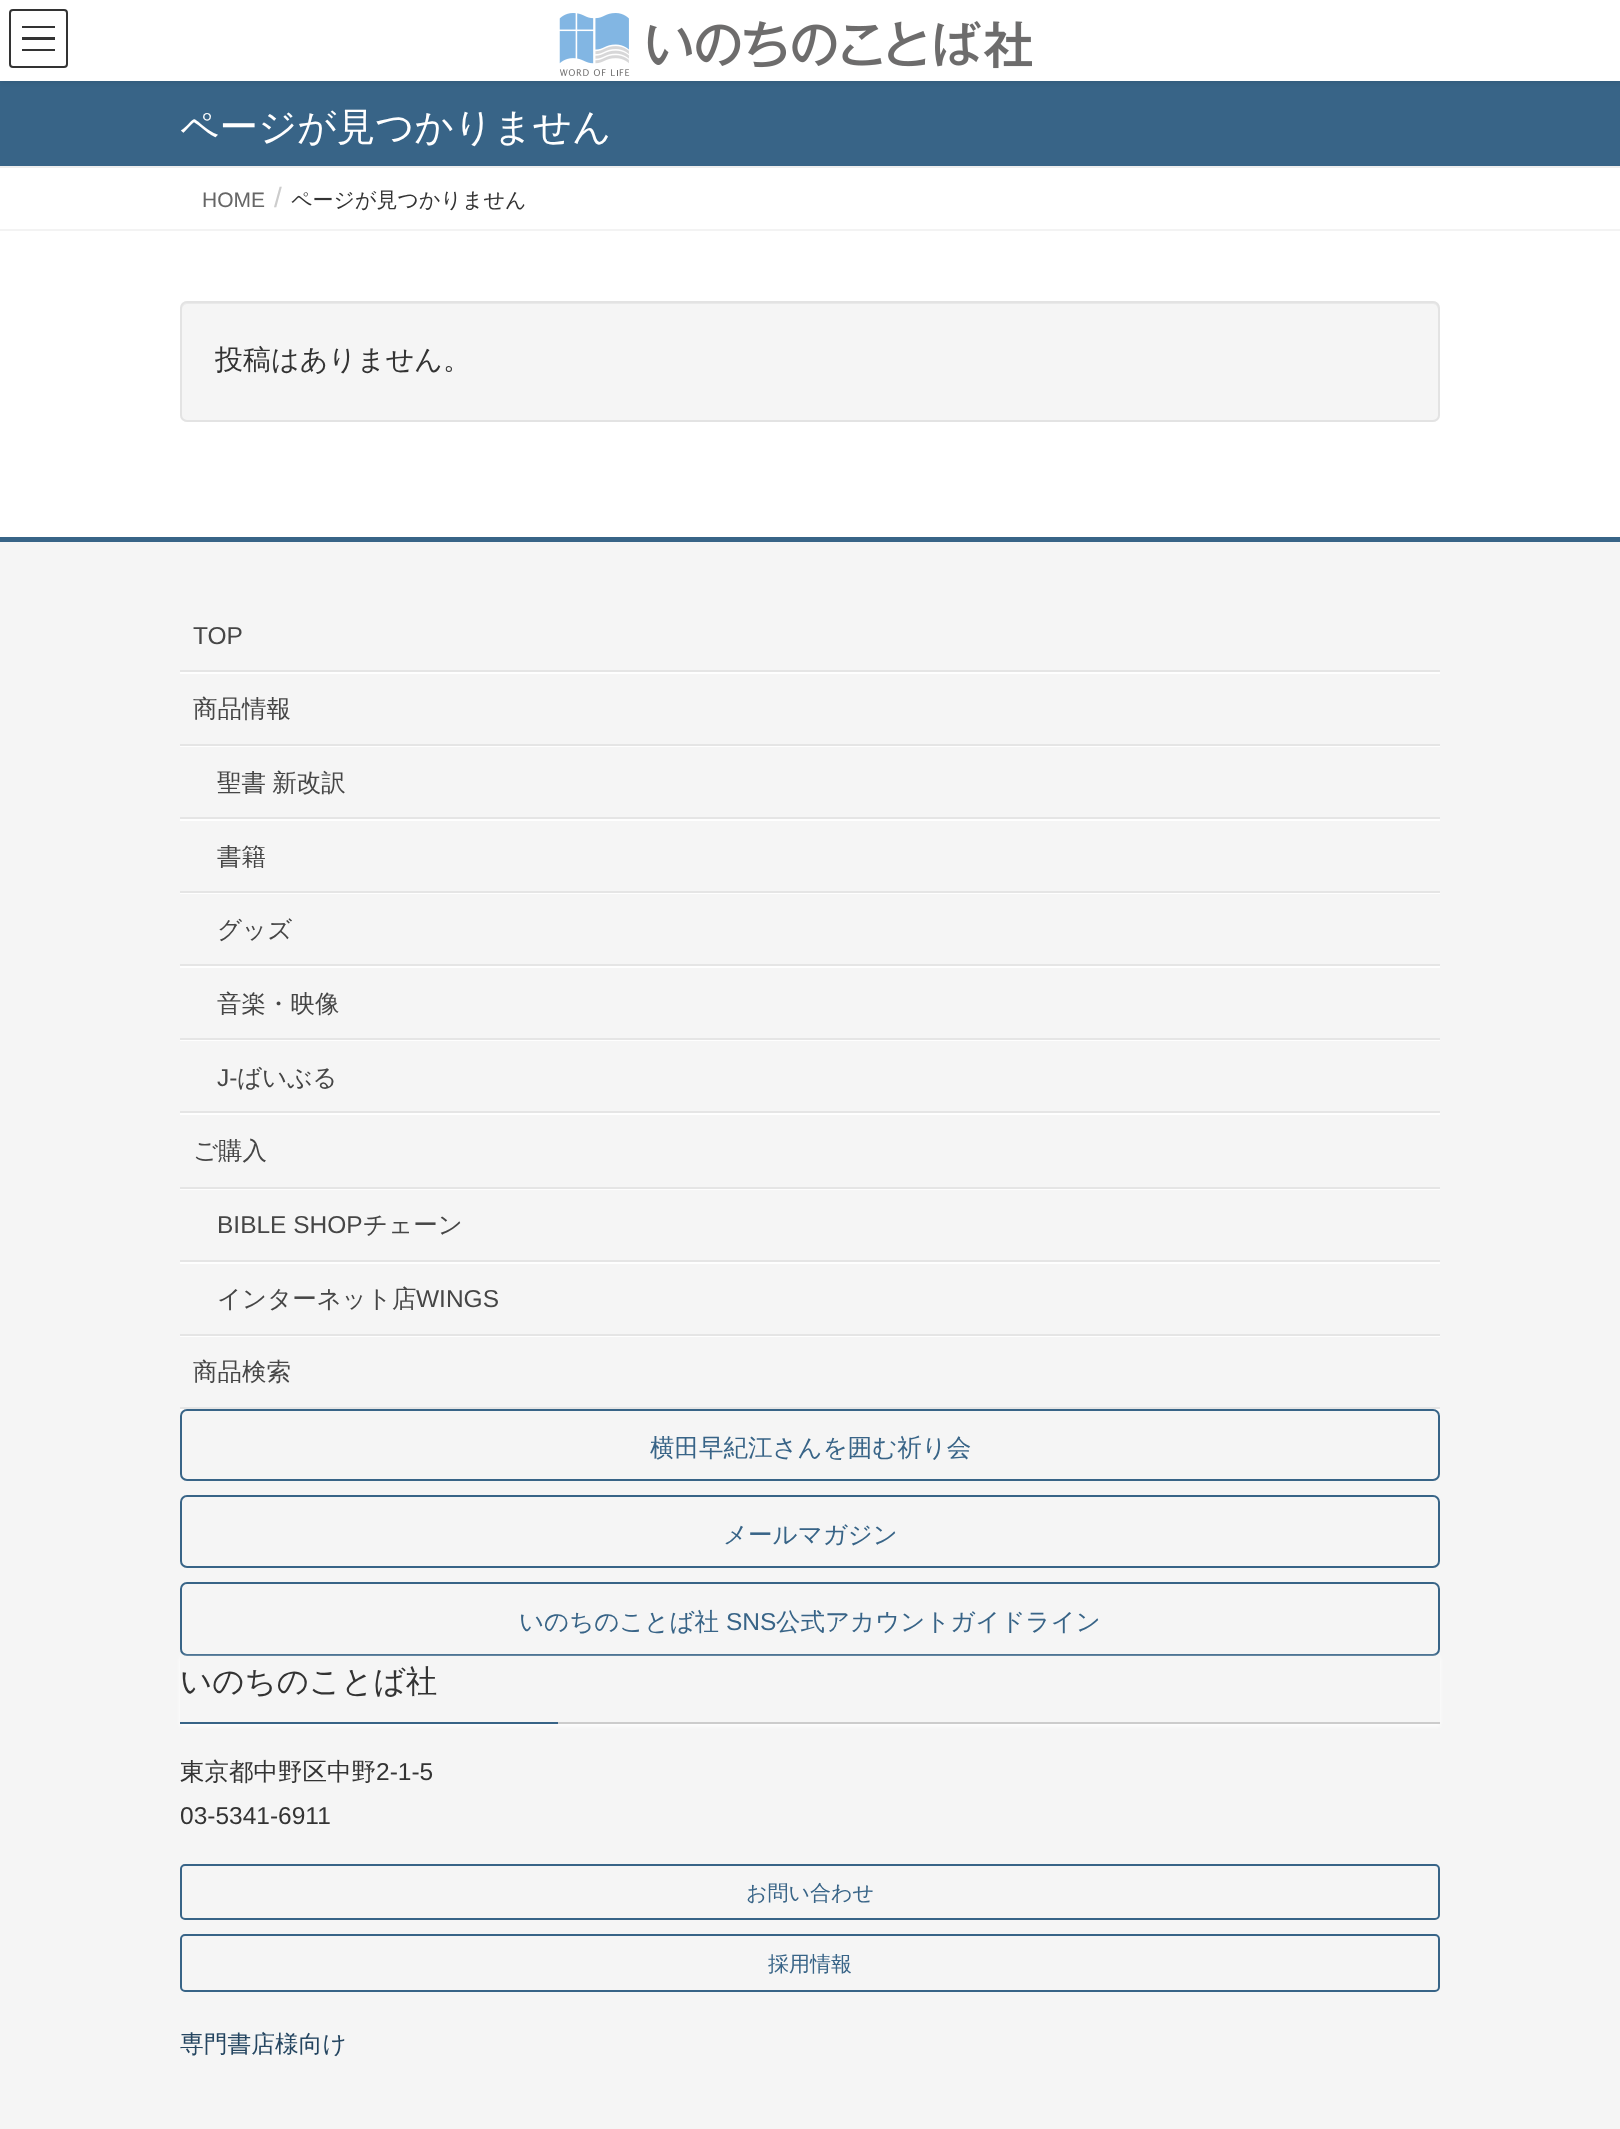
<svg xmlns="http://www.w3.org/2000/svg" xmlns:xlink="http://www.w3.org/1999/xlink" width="1620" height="2129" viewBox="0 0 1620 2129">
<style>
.cls-1{font:500 38.5px WenQuanYi Zen Hei;fill:#ffffff}
.cls-2{font:21px Liberation Sans;fill:#666666}
.cls-3{font:28px Liberation Sans;fill:#cccccc}
.cls-4{font:500 21px WenQuanYi Zen Hei;fill:#333333}
.cls-5{font:500 28px WenQuanYi Zen Hei;fill:#333333}
.cls-6{font:24.5px Liberation Sans;fill:#464646}
.cls-7{font:500 24.5px WenQuanYi Zen Hei;fill:#464646}
.cls-8{font:500 24.5px WenQuanYi Zen Hei;fill:#386487}
.cls-9{font:24.5px Liberation Sans;fill:#386487}
.cls-10{font:500 31.5px WenQuanYi Zen Hei;fill:#333333}
.cls-11{font:500 24.5px WenQuanYi Zen Hei;fill:#333333}
.cls-12{font:24.5px Liberation Sans;fill:#333333}
.cls-13{font:500 21px WenQuanYi Zen Hei;fill:#386487}
.cls-14{font:500 23.75px WenQuanYi Zen Hei;fill:#244560}
</style>
<defs>
<clipPath id="clip1"><path d="M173 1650H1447V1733H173ZM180 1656H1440V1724H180Z" clip-rule="evenodd"/></clipPath>
</defs>
<rect width="100%" height="100%" fill="#ffffff"/>
<rect fill="#386487" x="0" y="81" width="1620" height="85"/>
<rect fill="#000000" fill-opacity="0.1" filter="blur(2.5px)" x="0" y="2" width="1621" height="80"/>
<rect fill="#ffffff" x="0" y="0" width="1620" height="81"/>
<image xlink:href="image0.png" x="559" y="13" width="473" height="64"/>
<rect fill="#333333" x="22" y="26" width="33" height="2"/>
<rect fill="#333333" x="22" y="37" width="33" height="3"/>
<rect fill="#333333" x="22" y="49" width="33" height="2"/>
<rect fill="none" stroke="#333333" stroke-width="2" x="10" y="10" width="57" height="57" rx="3"/>
<rect fill="#eeeeee" x="0" y="166" width="1620" height="2"/>
<rect fill="#f3f3f3" x="0" y="229" width="1620" height="2"/>
<rect fill="#f5f5f5" x="180" y="301" width="1260" height="121" rx="7"/>
<path fill="#e9e9e9" d="M187 304H1433C1436 304 1438 307 1438 310V416V419C1438 418 1439 416 1439 415V308C1439 305 1437 303 1434 303H187C184 303 182 305 182 308V310C182 307 184 304 187 304Z"/>
<rect fill="none" stroke="#e3e3e3" stroke-width="2" x="181" y="302" width="1258" height="119" rx="6"/>
<rect fill="#f5f5f5" x="0" y="542" width="1620" height="1587"/>
<rect fill="#386487" x="0" y="537" width="1620" height="5"/>
<path fill="#fefefe" d="M180 600V674H1440V672H180Z"/>
<rect fill="#e5e5e5" x="180" y="670" width="1260" height="2"/>
<path fill="#fefefe" d="M180 674V747H1440V746H180Z"/>
<rect fill="#e5e5e5" x="180" y="744" width="1260" height="2"/>
<path fill="#fefefe" d="M180 747V821H1440V819H180Z"/>
<rect fill="#e5e5e5" x="180" y="817" width="1260" height="2"/>
<path fill="#fefefe" d="M180 821V894H1440V892H180Z"/>
<rect fill="#e5e5e5" x="180" y="891" width="1260" height="2"/>
<path fill="#fefefe" d="M180 894V968H1440V966H180Z"/>
<rect fill="#e5e5e5" x="180" y="964" width="1260" height="2"/>
<path fill="#fefefe" d="M180 968V1041H1440V1040H180Z"/>
<rect fill="#e5e5e5" x="180" y="1038" width="1260" height="2"/>
<path fill="#fefefe" d="M180 1041V1115H1440V1113H180Z"/>
<rect fill="#e5e5e5" x="180" y="1111" width="1260" height="2"/>
<path fill="#fefefe" d="M180 1115V1190H1440V1188H180Z"/>
<rect fill="#e5e5e5" x="180" y="1187" width="1260" height="2"/>
<path fill="#fefefe" d="M180 1190V1264H1440V1262H180Z"/>
<rect fill="#e5e5e5" x="180" y="1260" width="1260" height="2"/>
<path fill="#fefefe" d="M180 1264V1337H1440V1335H180Z"/>
<rect fill="#e5e5e5" x="180" y="1334" width="1260" height="2"/>
<path fill="#fefefe" d="M180 1337V1411H1440V1409H180Z"/>
<rect fill="#e5e5e5" x="180" y="1407" width="1260" height="2"/>
<rect fill="none" stroke="#386487" stroke-width="2" x="181" y="1410" width="1258" height="70" rx="6"/>
<rect fill="none" stroke="#386487" stroke-width="2" x="181" y="1496" width="1258" height="71" rx="6"/>
<rect fill="none" stroke="#386487" stroke-width="2" x="181" y="1583" width="1258" height="72" rx="6"/>
<g clip-path="url(#clip1)">
<rect fill="#ffffff" fill-opacity="0.9" filter="blur(2px)" x="180" y="1657" width="1260" height="69"/>
</g>
<rect fill="#cccccc" x="558" y="1722" width="882" height="2"/>
<rect fill="#386487" x="180" y="1722" width="378" height="2"/>
<rect fill="none" stroke="#386487" stroke-width="2" x="181" y="1865" width="1258" height="54" rx="4"/>
<rect fill="none" stroke="#386487" stroke-width="2" x="181" y="1935" width="1258" height="56" rx="4"/>
<text class="cls-1" x="180" y="140">ページが見つかりません</text>
<text class="cls-2" x="202" y="207">HOME</text>
<text class="cls-3" x="274" y="207">/</text>
<text class="cls-4" x="291" y="207">ページが見つかりません</text>
<text class="cls-5" x="215" y="369">投稿はありません。</text>
<text class="cls-6" x="193" y="644">TOP</text>
<text class="cls-7" x="193" y="717">商品情報</text>
<text class="cls-7" x="217" y="791" word-spacing="-1">聖書 新改訳</text>
<text class="cls-7" x="217" y="865">書籍</text>
<text class="cls-7" x="217" y="938">グッズ</text>
<text class="cls-7" x="217" y="1012">音楽・映像</text>
<text class="cls-6" x="217" y="1086">J-</text>
<text class="cls-7" x="237" y="1086">ばいぶる</text>
<text class="cls-7" x="193" y="1159">ご購入</text>
<text class="cls-6" x="217" y="1233">BIBLE SHOP</text>
<text class="cls-7" x="363" y="1233">チェーン</text>
<text class="cls-7" x="217" y="1307">インターネット店</text>
<text class="cls-6" x="416" y="1307">WINGS</text>
<text class="cls-7" x="193" y="1380">商品検索</text>
<text class="cls-8" x="650" y="1456">横田早紀江さんを囲む祈り会</text>
<text class="cls-8" x="723" y="1543">メールマガジン</text>
<text class="cls-8" x="519" y="1630">いのちのことば社</text>
<text class="cls-9" x="726" y="1630">SNS</text>
<text class="cls-8" x="776" y="1630">公式アカウントガイドライン</text>
<text class="cls-10" x="180" y="1692">いのちのことば社</text>
<text class="cls-11" x="180" y="1780">東京都中野区中野</text>
<text class="cls-12" x="376" y="1780">2-1-5</text>
<text class="cls-12" x="180" y="1824">03-5341-6911</text>
<text class="cls-13" x="746" y="1900">お問い合わせ</text>
<text class="cls-13" x="768" y="1971">採用情報</text>
<text class="cls-14" x="180" y="2052">専門書店様向け</text>
</svg>
